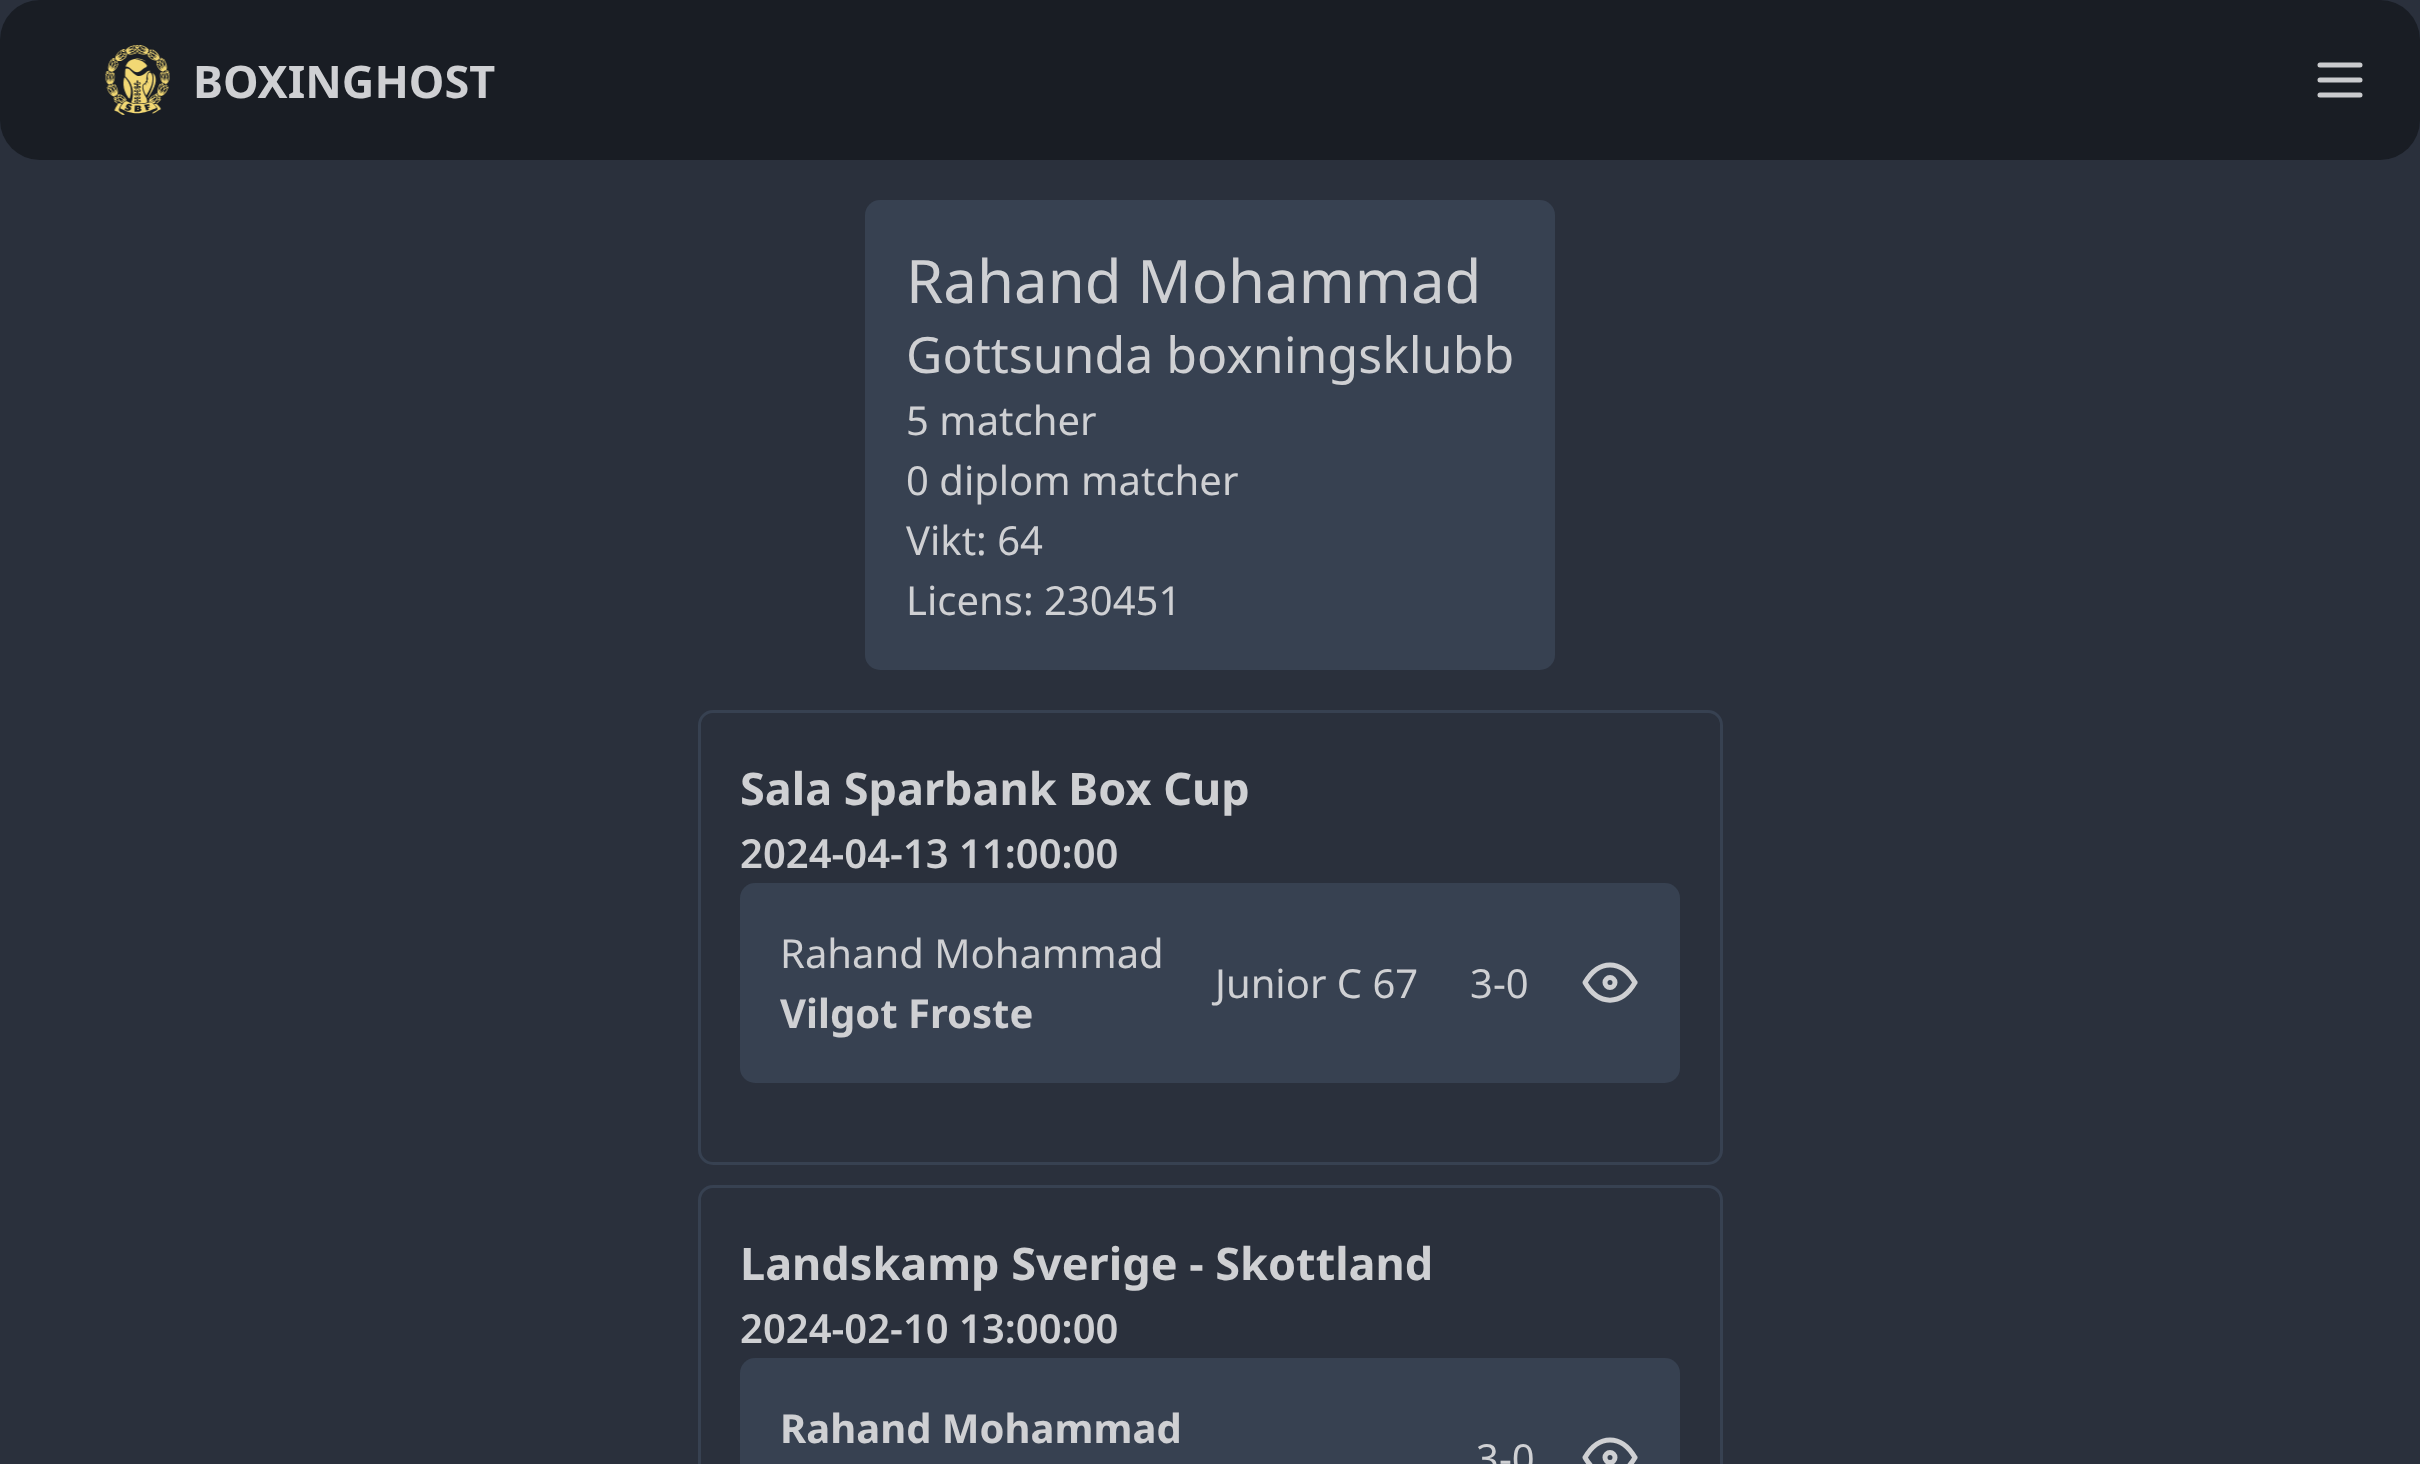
<svg xmlns="http://www.w3.org/2000/svg" xmlns:xlink="http://www.w3.org/1999/xlink" width="2420" height="1464" viewBox="0 0 2420 1464">
<style>
.cls-1{font:bold 45px Noto Sans;fill:#cfd0d3}
.cls-2{font:60px Noto Sans;fill:#cfd0d3}
.cls-3{font:50px Noto Sans;fill:#cfd0d3}
.cls-4{font:40px Noto Sans;fill:#cfd0d3}
.cls-5{font:600 40px Noto Sans;fill:#cfd0d3}
.cls-6{font:bold 40px Noto Sans;fill:#cfd0d3}
</style>
<rect width="100%" height="100%" fill="#2a303c"/>
<rect fill="#191d24" x="0" y="0" width="2420" height="160" rx="40"/>
<image xlink:href="image0.png" x="105" y="45" width="65" height="70"/>
<path fill="none" stroke="#cacbce" stroke-width="5" stroke-linecap="round" stroke-linejoin="round" d="M2320 65H2360M2320 80H2360M2320 95H2360"/>
<rect fill="#374151" x="865" y="200" width="690" height="470" rx="15"/>
<rect fill="none" stroke="#374151" stroke-width="3" x="699.5" y="711.5" width="1022" height="452" rx="13.5"/>
<rect fill="#374151" x="740" y="883" width="940" height="200" rx="15"/>
<circle fill="none" stroke="#cfd0d3" stroke-width="5" cx="1610" cy="982.5" r="5"/>
<path fill="none" stroke="#cfd0d3" stroke-width="5" stroke-linecap="round" stroke-linejoin="round" d="M1635 982.5C1621.5 1006 1598.5 1006 1585 982.5C1598.5 959 1621.5 959 1635 982.5"/>
<rect fill="none" stroke="#374151" stroke-width="3" x="699.5" y="1186.5" width="1022" height="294" rx="13.5"/>
<rect fill="#374151" x="740" y="1358" width="940" height="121" rx="15"/>
<circle fill="none" stroke="#cfd0d3" stroke-width="5" cx="1610" cy="1457.5" r="5"/>
<path fill="none" stroke="#cfd0d3" stroke-width="5" stroke-linecap="round" stroke-linejoin="round" d="M1635 1457.5C1621.5 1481 1598.5 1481 1585 1457.5C1598.5 1434 1621.5 1434 1635 1457.5"/>
<text class="cls-1" x="193" y="98">BOXINGHOST</text>
<text class="cls-2" x="906" y="303">Rahand Mohammad</text>
<text class="cls-3" x="906" y="373">Gottsunda boxningsklubb</text>
<text class="cls-4"><tspan x="906" y="435">5 matcher</tspan><tspan x="906" y="495">0 diplom matcher</tspan><tspan x="906" y="555">Vikt: 64</tspan><tspan x="906" y="615">Licens: 230451</tspan></text>
<text class="cls-1" x="740" y="805">Sala Sparbank Box Cup</text>
<text class="cls-5" x="740" y="868">2024-04-13 11:00:00</text>
<text class="cls-4" x="780" y="968">Rahand Mohammad</text>
<text class="cls-6" x="780" y="1028">Vilgot Froste</text>
<text class="cls-4" x="1215" y="998">Junior C 67</text>
<text class="cls-4" x="1470" y="998">3-0</text>
<text class="cls-1" x="740" y="1280">Landskamp Sverige - Skottland</text>
<text class="cls-5" x="740" y="1343">2024-02-10 13:00:00</text>
<text class="cls-6" x="780" y="1443">Rahand Mohammad</text>
<text class="cls-4" x="1476" y="1473">3-0</text>
</svg>
